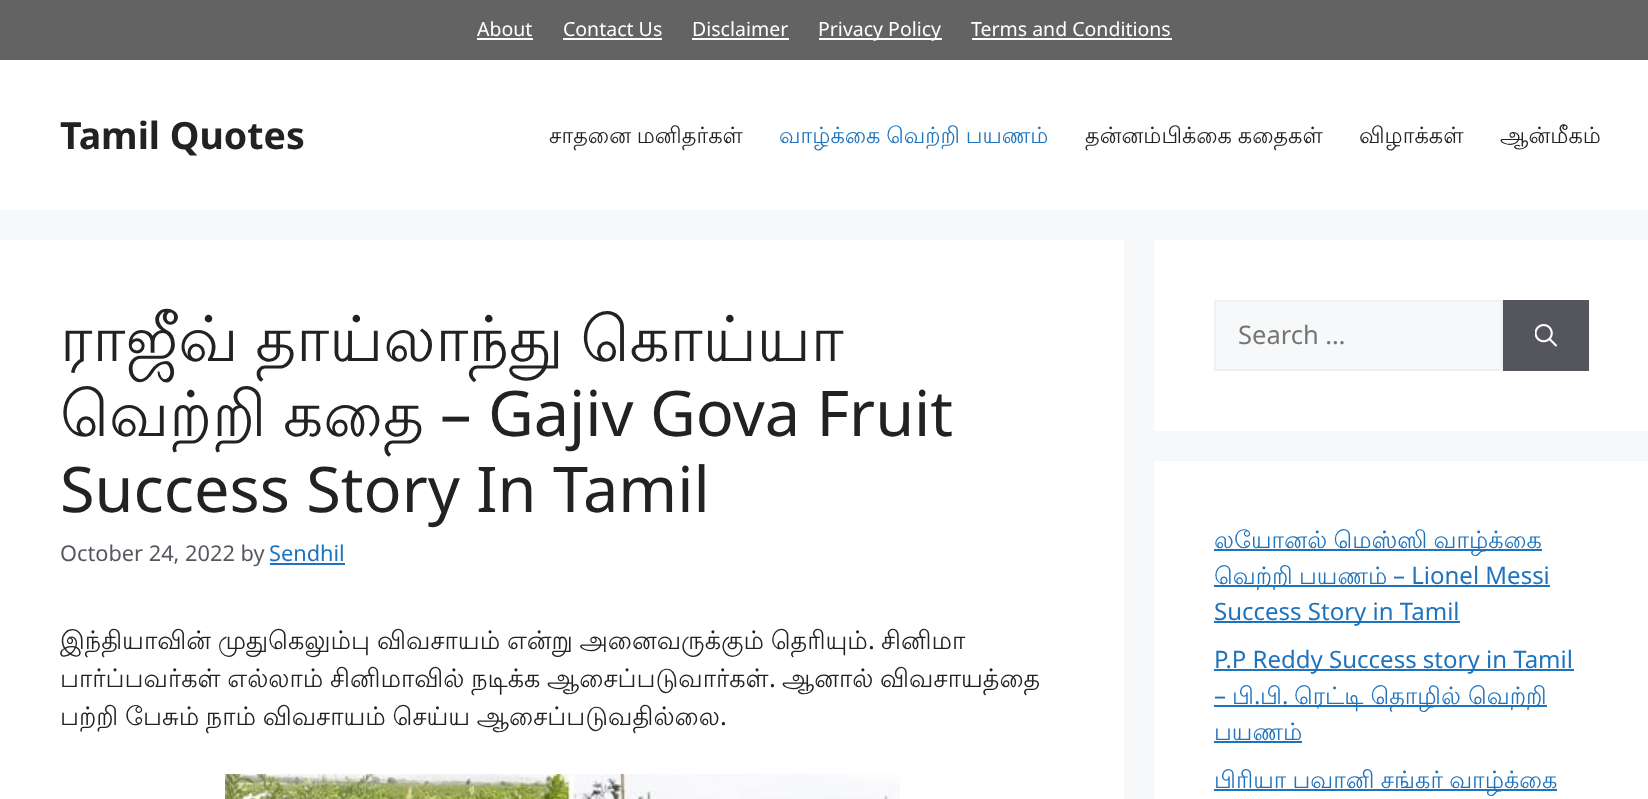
<svg xmlns="http://www.w3.org/2000/svg" xmlns:xlink="http://www.w3.org/1999/xlink" width="1648" height="799" viewBox="0 0 1648 799">
<style>
.cls-1{font:19.5px Noto Sans;fill:#ffffff}
.cls-2{font:bold 37.5px Noto Sans;fill:#222222}
.cls-3{font:22.5px Lohit Tamil;fill:#222222}
.cls-4{font:22.5px Lohit Tamil;fill:#1e73be}
.cls-5{font:63px Lohit Tamil;fill:#222222}
.cls-6{font:63px Noto Sans;fill:#222222}
.cls-7{font:21.75px Noto Sans;fill:#575760}
.cls-8{font:21.75px Noto Sans;fill:#1e73be}
.cls-9{font:25.5px Lohit Tamil;fill:#222222}
.cls-10{font:25.5px Noto Sans;fill:#222222}
.cls-11{font:25.5px Noto Sans;fill:#757575}
.cls-12{font:24px Lohit Tamil;fill:#1e73be}
.cls-13{font:24px Noto Sans;fill:#1e73be}
</style>
<rect width="100%" height="100%" fill="#f7f8f9"/>
<rect fill="#636363" x="0" y="0" width="1648" height="60"/>
<rect fill="#ffffff" x="477" y="38" width="56" height="2"/>
<rect fill="#ffffff" x="563" y="38" width="99" height="2"/>
<rect fill="#ffffff" x="692" y="38" width="97" height="2"/>
<rect fill="#ffffff" x="819" y="38" width="123" height="2"/>
<rect fill="#ffffff" x="972" y="38" width="200" height="2"/>
<rect fill="#ffffff" x="0" y="60" width="1648" height="150"/>
<rect fill="#ffffff" x="0" y="240" width="1124" height="559"/>
<rect fill="#1e73be" x="270" y="563" width="75" height="2"/>
<image xlink:href="image0.png" x="225" y="774" width="675" height="25"/>
<rect fill="#ffffff" x="1154" y="240" width="494" height="191"/>
<rect fill="#f7f8f9" stroke="#f0f0f0" stroke-width="2" x="1215" y="301" width="287" height="69"/>
<rect fill="#55555e" x="1503" y="300" width="86" height="71"/>
<image xlink:href="image1.png" x="1535" y="324" width="22" height="23"/>
<rect fill="#ffffff" x="1154" y="461" width="494" height="338"/>
<rect fill="#1e73be" x="1214" y="549" width="328" height="2"/>
<rect fill="#1e73be" x="1214" y="585" width="336" height="2"/>
<rect fill="#1e73be" x="1214" y="621" width="246" height="2"/>
<rect fill="#1e73be" x="1214" y="669" width="360" height="2"/>
<rect fill="#1e73be" x="1214" y="705" width="333" height="2"/>
<rect fill="#1e73be" x="1214" y="741" width="88" height="2"/>
<rect fill="#1e73be" x="1214" y="789" width="343" height="2"/>
<text class="cls-1" x="477" y="36">About</text>
<text class="cls-1" x="563" y="36">Contact Us</text>
<text class="cls-1" x="692" y="36">Disclaimer</text>
<text class="cls-1" x="818" y="36">Privacy Policy</text>
<text class="cls-1" x="971" y="36">Terms and Conditions</text>
<text class="cls-2" x="60" y="149">Tamil Quotes</text>
<text class="cls-3" x="549" y="143" word-spacing="-1">சாதனை மனிதர்கள்</text>
<text class="cls-4" x="779" y="143" word-spacing="-1">வாழ்க்கை வெற்றி பயணம்</text>
<text class="cls-3" x="1085" y="143" word-spacing="-1">தன்னம்பிக்கை கதைகள்</text>
<text class="cls-3" x="1359" y="143">விழாக்கள்</text>
<text class="cls-3" x="1500" y="143">ஆன்மீகம்</text>
<text class="cls-5"><tspan x="60" y="361" word-spacing="-2">ராஜீவ் தாய்லாந்து கொய்யா</tspan><tspan x="60" y="436">வெற்றி</tspan></text>
<text class="cls-5" x="283" y="436">கதை</text>
<text class="cls-6" x="440" y="436">– Gajiv Gova Fruit</text>
<text class="cls-6" x="60" y="512">Success Story In Tamil</text>
<text class="cls-7" x="60" y="561">October 24, 2022 by</text>
<text class="cls-8" x="269" y="561">Sendhil</text>
<text class="cls-9" x="60" y="649" word-spacing="-1">இந்தியாவின் முதுகெலும்பு</text>
<text class="cls-9" x="377" y="649" word-spacing="-1">விவசாயம் என்று அனைவருக்கும் தெரியும்</text>
<text class="cls-10" x="868" y="649">.</text>
<text class="cls-9" x="881" y="649">சினிமா</text>
<text class="cls-9" x="60" y="687" word-spacing="-1">பார்ப்பவர்கள் எல்லாம் சினிமாவில் நடிக்க ஆசைப்படுவார்கள்</text>
<text class="cls-10" x="769" y="687">.</text>
<text class="cls-9" x="782" y="687" word-spacing="-1">ஆனால் விவசாயத்தை</text>
<text class="cls-9" x="60" y="725" word-spacing="-1">பற்றி பேசும் நாம் விவசாயம் செய்ய ஆசைப்படுவதில்லை</text>
<text class="cls-10" x="720" y="725">.</text>
<text class="cls-11" x="1238" y="344">Search …</text>
<text class="cls-12"><tspan x="1214" y="548" word-spacing="-1">லயோனல் மெஸ்ஸி வாழ்க்கை</tspan><tspan x="1214" y="584">வெற்றி</tspan></text>
<text class="cls-12" x="1299" y="584">பயணம்</text>
<text class="cls-13" x="1393" y="584">– Lionel Messi</text>
<text class="cls-13" x="1214" y="620">Success Story in Tamil</text>
<text class="cls-13"><tspan x="1214" y="668">P.P Reddy Success story in Tamil</tspan><tspan x="1214" y="704">–</tspan></text>
<text class="cls-12" x="1232" y="704">பி</text>
<text class="cls-12" x="1260" y="704">பி</text>
<text class="cls-12" x="1294" y="704">ரெட்டி தொழில் வெற்றி</text>
<text class="cls-13" x="1254" y="704">.</text>
<text class="cls-13" x="1282" y="704">.</text>
<text class="cls-12" x="1214" y="740">பயணம்</text>
<text class="cls-12" x="1214" y="788" word-spacing="-1">பிரியா பவானி சங்கர் வாழ்க்கை</text>
</svg>
